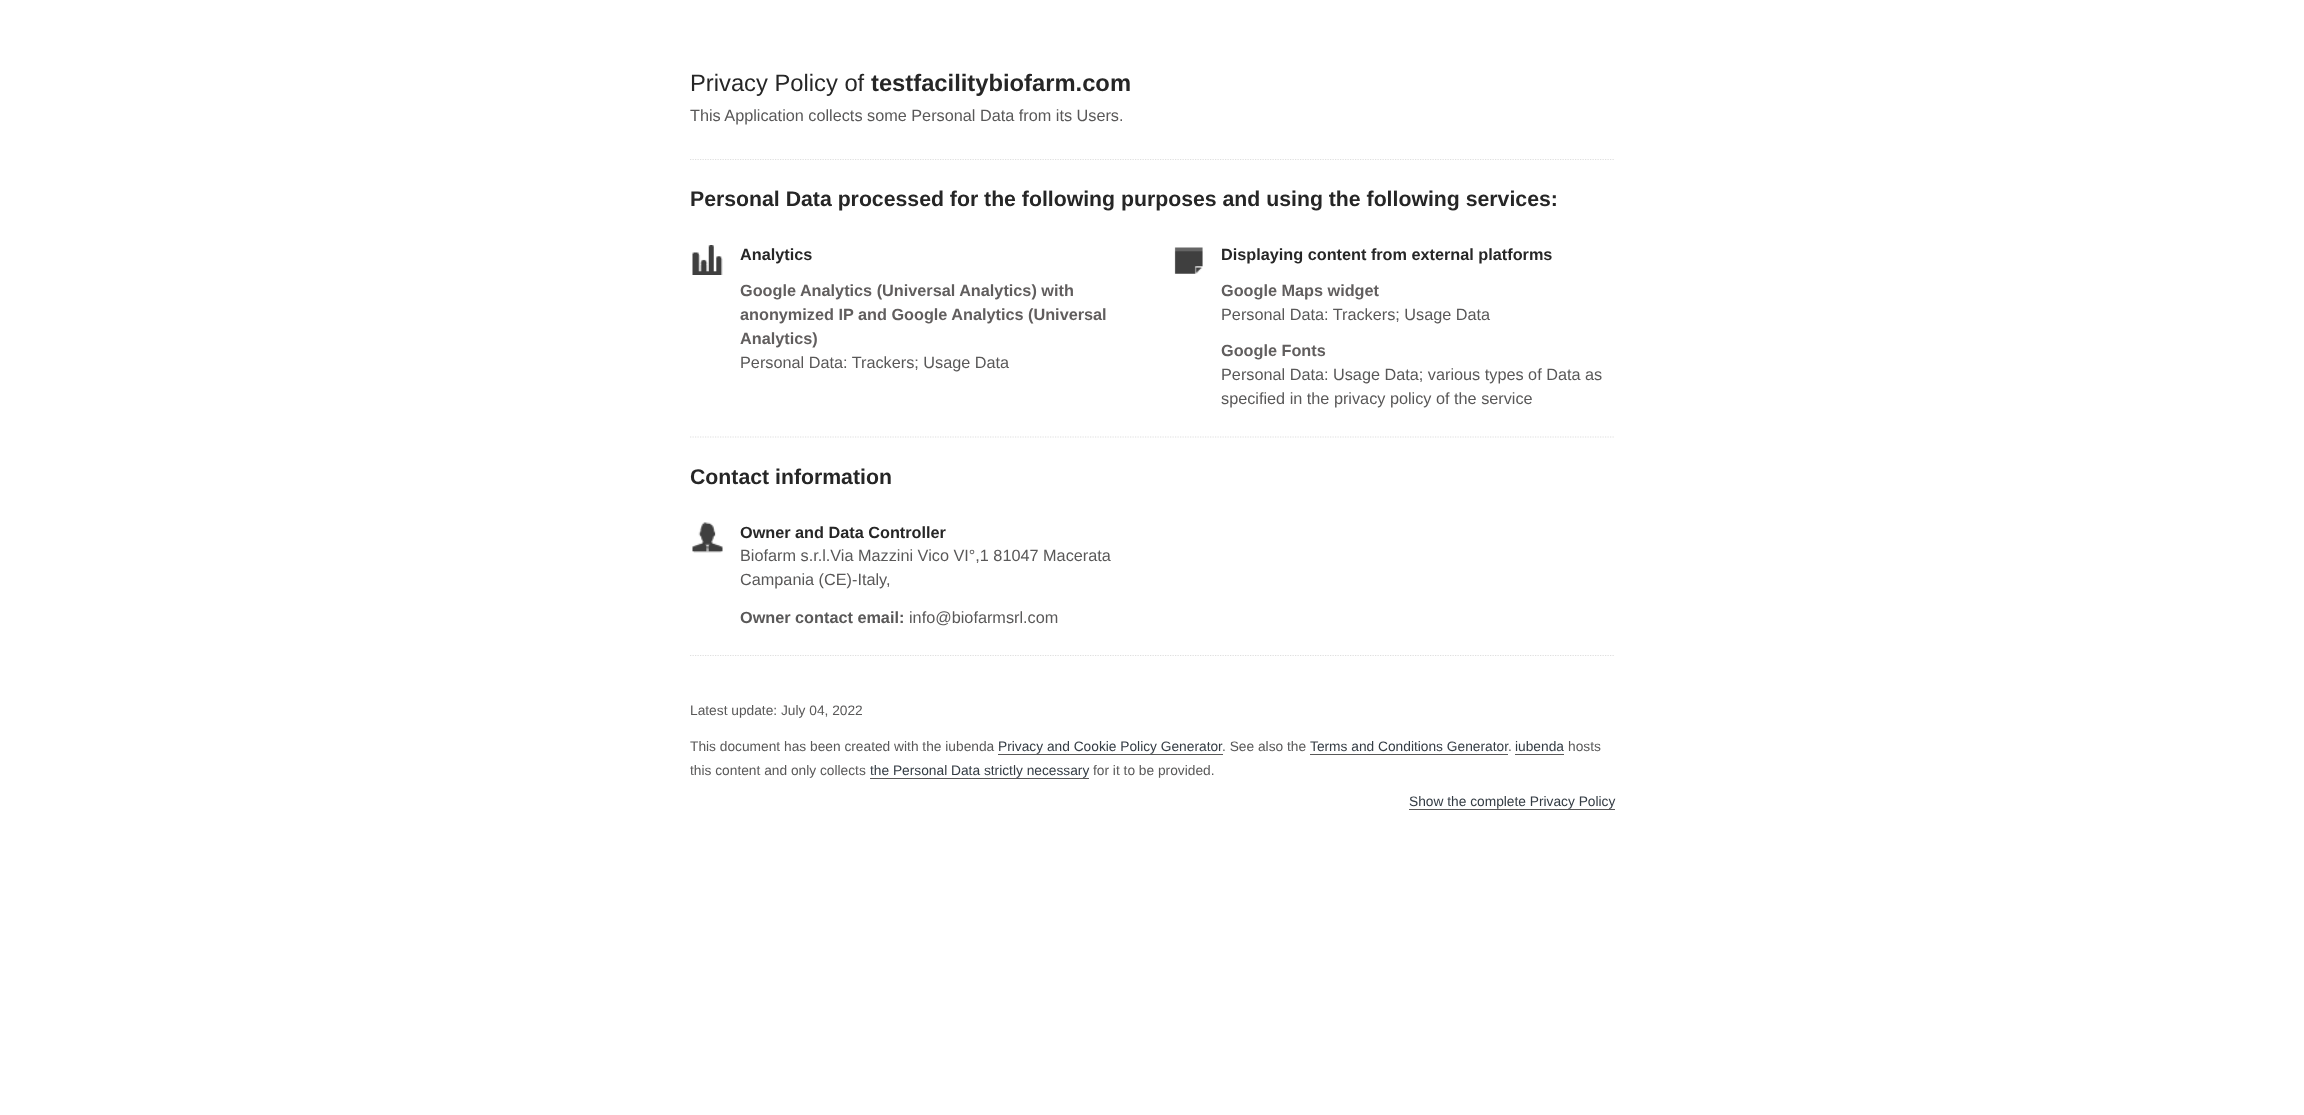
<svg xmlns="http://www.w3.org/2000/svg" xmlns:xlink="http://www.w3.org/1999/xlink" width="2304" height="1115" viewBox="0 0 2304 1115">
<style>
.cls-1{font:23.75px Liberation Sans;fill:#262626}
.cls-2{font:bold 23.75px Liberation Sans;fill:#262626}
.cls-3{font:16.25px Liberation Sans;fill:#595858}
.cls-4{font:bold 21.25px Liberation Sans;fill:#262626}
.cls-5{font:bold 16.25px Liberation Sans;fill:#262626}
.cls-6{font:bold 16.25px Liberation Sans;fill:#615e5e}
.cls-7{font:bold 16.25px Liberation Sans;fill:#595858}
.cls-8{font:13.75px Liberation Sans;fill:#595858}
.cls-9{font:13.75px Liberation Sans;fill:#333b43}
</style>
<rect width="100%" height="100%" fill="#ffffff"/>
<path fill="none" stroke="#dfdfdf" stroke-width="1.2" stroke-dasharray="1.25 1.25" d="M690 159.5H1615"/>
<path fill="none" stroke="#dfdfdf" stroke-width="1.2" stroke-dasharray="1.25 1.25" d="M690 437H1615"/>
<image xlink:href="image0.png" x="692" y="245" width="31" height="30"/>
<image xlink:href="image1.png" x="1174" y="247" width="29" height="27"/>
<path fill="none" stroke="#dfdfdf" stroke-width="1.2" stroke-dasharray="1.25 1.25" d="M690 655.5H1615"/>
<image xlink:href="image2.png" x="692" y="522" width="31" height="31"/>
<rect fill="#595858" x="998" y="754" width="225" height="1"/>
<rect fill="#595858" x="1310" y="754" width="198" height="1"/>
<rect fill="#595858" x="1515" y="754" width="49" height="1"/>
<rect fill="#595858" x="870" y="778" width="219" height="1"/>
<rect fill="#595858" x="1409" y="809" width="206" height="1"/>
<text class="cls-1" x="690" y="91">Privacy Policy of</text>
<text class="cls-2" x="871" y="91">testfacilitybiofarm.com</text>
<text class="cls-3" x="690" y="121">This Application collects some Personal Data from its Users.</text>
<text class="cls-4" x="690" y="206">Personal Data processed for the following purposes and using the following services:</text>
<text class="cls-5" x="740" y="260">Analytics</text>
<text class="cls-6"><tspan x="740" y="296">Google Analytics (Universal Analytics) with</tspan><tspan x="740" y="320">anonymized IP and Google Analytics (Universal</tspan><tspan x="740" y="344">Analytics)</tspan></text>
<text class="cls-3" x="740" y="368">Personal Data: Trackers; Usage Data</text>
<text class="cls-5" x="1221" y="260">Displaying content from external platforms</text>
<text class="cls-6" x="1221" y="296">Google Maps widget</text>
<text class="cls-3" x="1221" y="320">Personal Data: Trackers; Usage Data</text>
<text class="cls-6" x="1221" y="356">Google Fonts</text>
<text class="cls-3"><tspan x="1221" y="380">Personal Data: Usage Data; various types of Data as</tspan><tspan x="1221" y="404">specified in the privacy policy of the service</tspan></text>
<text class="cls-4" x="690" y="484">Contact information</text>
<text class="cls-5" x="740" y="538">Owner and Data Controller</text>
<text class="cls-3"><tspan x="740" y="561">Biofarm s.r.l.Via Mazzini Vico VI°,1 81047 Macerata</tspan><tspan x="740" y="585">Campania (CE)-Italy,</tspan></text>
<text class="cls-7" x="740" y="623">Owner contact email:</text>
<text class="cls-3" x="909" y="623">info@biofarmsrl.com</text>
<text class="cls-8" x="690" y="715">Latest update: July 04, 2022</text>
<text class="cls-8" x="690" y="751">This document has been created with the iubenda</text>
<text class="cls-9" x="998" y="751">Privacy and Cookie Policy Generator</text>
<text class="cls-8" x="1222" y="751">. See also the</text>
<text class="cls-9" x="1310" y="751">Terms and Conditions Generator</text>
<text class="cls-8" x="1508" y="751">.</text>
<text class="cls-9" x="1515" y="751">iubenda</text>
<text class="cls-8" x="1568" y="751">hosts</text>
<text class="cls-8" x="690" y="775">this content and only collects</text>
<text class="cls-9" x="870" y="775">the Personal Data strictly necessary</text>
<text class="cls-8" x="1093" y="775">for it to be provided.</text>
<text class="cls-9" x="1409" y="806">Show the complete Privacy Policy</text>
</svg>
